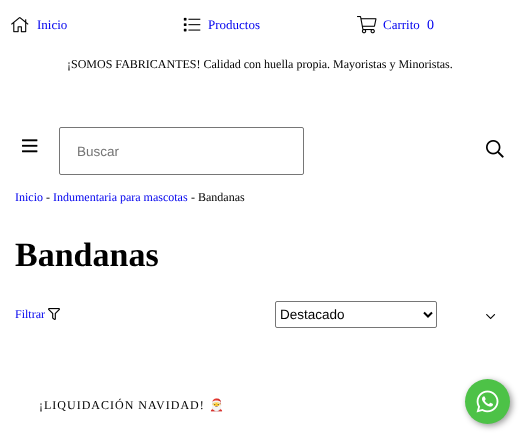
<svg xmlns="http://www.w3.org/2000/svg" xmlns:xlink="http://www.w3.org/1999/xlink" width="520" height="434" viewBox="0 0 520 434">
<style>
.cls-1{font:13px Liberation Serif;fill:#0000ee}
.cls-2{font:14px Liberation Serif;fill:#0000ee}
.cls-3{font:12px Liberation Serif;fill:#000000}
.cls-4{font:13.5px Liberation Sans;fill:#757575}
.cls-5{font:12px Liberation Serif;fill:#0000ee}
.cls-6{font:bold 34px Liberation Serif;fill:#000000}
.cls-7{font:13.5px Liberation Sans;fill:#000000}
.cls-8{font:12px Liberation Serif;letter-spacing:1px;fill:#000000}
.cls-9{font:12px Noto Color Emoji;letter-spacing:1px;fill:#000000}
</style>
<rect width="100%" height="100%" fill="#ffffff"/>
<image xlink:href="image0.png" x="11" y="17" width="18" height="16"/>
<image xlink:href="image1.png" x="183" y="17" width="18" height="15"/>
<image xlink:href="image2.png" x="357" y="16" width="20" height="18"/>
<image xlink:href="image3.png" x="22" y="139" width="16" height="14"/>
<rect fill="none" stroke="#767676" x="59.5" y="127.5" width="244" height="47" rx="1.5"/>
<image xlink:href="image4.png" x="486" y="140" width="18" height="18"/>
<image xlink:href="image5.png" x="48" y="308" width="12" height="12"/>
<rect fill="none" stroke="#767676" x="275.5" y="301.5" width="161" height="26" rx="1.5"/>
<path fill="none" stroke="#000000" stroke-width="2" d="M424 312.5L428 316.5L432 312.5"/>
<image xlink:href="image6.png" x="486" y="314" width="10" height="6"/>
<rect fill="#000000" fill-opacity="0.4" filter="blur(3px)" x="467" y="381" width="45" height="45" rx="22.5"/>
<circle fill="#4dc247" cx="487.5" cy="401.5" r="22.5"/>
<image xlink:href="image7.png" x="476" y="390" width="23" height="23"/>
<text class="cls-1" x="37" y="29">Inicio</text>
<text class="cls-1" x="208" y="29">Productos</text>
<text class="cls-1" x="383" y="29">Carrito</text>
<text class="cls-2" x="427" y="29">0</text>
<text class="cls-3" x="67" y="68">¡SOMOS FABRICANTES! Calidad con huella propia. Mayoristas y Minoristas.</text>
<text class="cls-4" x="77" y="156">Buscar</text>
<text class="cls-5" x="15" y="201">Inicio</text>
<text class="cls-3" x="46" y="201">-</text>
<text class="cls-5" x="53" y="201">Indumentaria para mascotas</text>
<text class="cls-3" x="191" y="201">- Bandanas</text>
<text class="cls-6" x="15" y="266">Bandanas</text>
<text class="cls-5" x="15" y="318">Filtrar</text>
<text class="cls-7" x="280" y="319">Destacado</text>
<text class="cls-8" x="39" y="409">¡LIQUIDACIÓN NAVIDAD!</text>
<text class="cls-9" x="209" y="409">🎅</text>
</svg>
